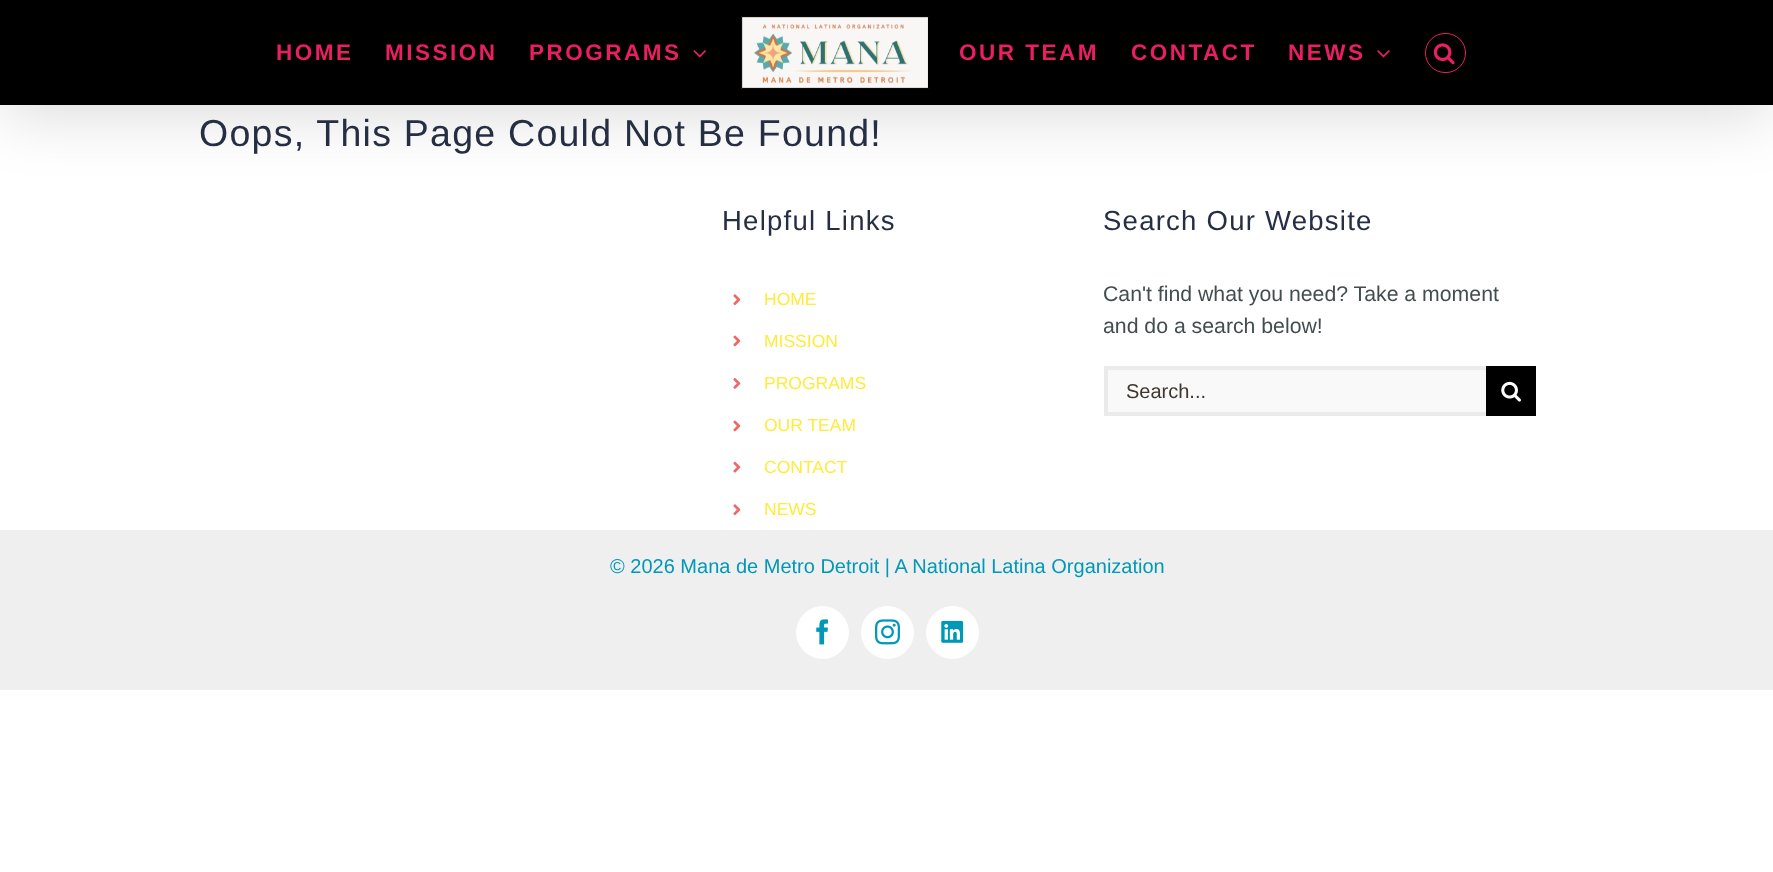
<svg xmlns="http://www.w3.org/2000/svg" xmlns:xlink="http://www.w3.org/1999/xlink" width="1773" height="872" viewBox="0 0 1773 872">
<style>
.cls-1{font:bold 22.5px Liberation Sans;letter-spacing:2.5px;fill:#e91e63}
.cls-2{font:37.5px Liberation Sans;letter-spacing:1.25px;fill:#262e44}
.cls-3{font:27.5px Liberation Sans;letter-spacing:1.25px;fill:#262e44}
.cls-4{font:17.5px Liberation Sans;fill:#ffeb3b}
.cls-5{font:21.25px Liberation Sans;fill:#434d4f}
.cls-6{font:20px Liberation Sans;fill:#3e372d}
.cls-7{font:20px Liberation Sans;fill:#0098b7}
</style>
<rect width="100%" height="100%" fill="#ffffff"/>
<rect fill="#000000" fill-opacity="0.14" filter="blur(31px)" x="3" y="15" width="1768" height="100"/>
<rect fill="#000000" x="0" y="0" width="1773" height="105"/>
<image xlink:href="image0.png" x="693" y="50" width="13" height="8"/>
<image xlink:href="image1.png" x="741" y="16" width="188" height="73"/>
<image xlink:href="image2.png" x="1377" y="50" width="13" height="8"/>
<rect fill="none" stroke="#e91e63" x="1425.5" y="33.5" width="40" height="39" rx="19.5"/>
<image xlink:href="image3.png" x="1433" y="43" width="22" height="22"/>
<image xlink:href="image4.png" x="733" y="294" width="8" height="12"/>
<image xlink:href="image5.png" x="733" y="335" width="8" height="12"/>
<image xlink:href="image6.png" x="733" y="378" width="8" height="11"/>
<image xlink:href="image5.png" x="733" y="420" width="8" height="12"/>
<image xlink:href="image7.png" x="733" y="461" width="8" height="12"/>
<image xlink:href="image4.png" x="733" y="504" width="8" height="12"/>
<rect fill="#f9f9f9" x="1104" y="366" width="382" height="50"/>
<path fill="#ebebeb" d="M1104 366H1486V370H1108Z"/>
<path fill="#ebebeb" d="M1486 416H1104L1108 412H1486Z"/>
<path fill="#dcdcdc" fill-opacity="0.5" d="M1104 416V366L1108 370V412Z"/>
<rect fill="#000000" x="1486" y="366" width="50" height="50"/>
<image xlink:href="image8.png" x="1501" y="381" width="20" height="21"/>
<rect fill="#efefef" x="0" y="531" width="1773" height="159"/>
<rect fill="#ededed" x="0" y="530" width="1773" height="1"/>
<circle fill="#ffffff" stroke="#ffffff" cx="822.5" cy="632.5" r="26"/>
<image xlink:href="image9.png" x="816" y="619" width="12" height="26"/>
<circle fill="#ffffff" stroke="#ffffff" cx="887.5" cy="632.5" r="26"/>
<image xlink:href="image10.png" x="875" y="619" width="25" height="26"/>
<circle fill="#ffffff" stroke="#ffffff" cx="952.5" cy="632.5" r="26"/>
<image xlink:href="image11.png" x="941" y="620" width="23" height="23"/>
<text class="cls-1" x="276" y="60">HOME</text>
<text class="cls-1" x="385" y="60">MISSION</text>
<text class="cls-1" x="529" y="60">PROGRAMS</text>
<text class="cls-1" x="959" y="60">OUR TEAM</text>
<text class="cls-1" x="1131" y="60">CONTACT</text>
<text class="cls-1" x="1288" y="60">NEWS</text>
<text class="cls-2" x="199" y="146">Oops, This Page Could Not Be Found!</text>
<text class="cls-3" x="722" y="230">Helpful Links</text>
<text class="cls-4" x="764" y="305">HOME</text>
<text class="cls-4" x="764" y="347">MISSION</text>
<text class="cls-4" x="764" y="389">PROGRAMS</text>
<text class="cls-4" x="764" y="431">OUR TEAM</text>
<text class="cls-4" x="764" y="473">CONTACT</text>
<text class="cls-4" x="764" y="515">NEWS</text>
<text class="cls-3" x="1103" y="230">Search Our Website</text>
<text class="cls-5"><tspan x="1103" y="301">Can't find what you need? Take a moment</tspan><tspan x="1103" y="333">and do a search below!</tspan></text>
<text class="cls-6" x="1126" y="398">Search...</text>
<text class="cls-7" x="610" y="573">© 2026 Mana de Metro Detroit | A National Latina Organization</text>
</svg>
